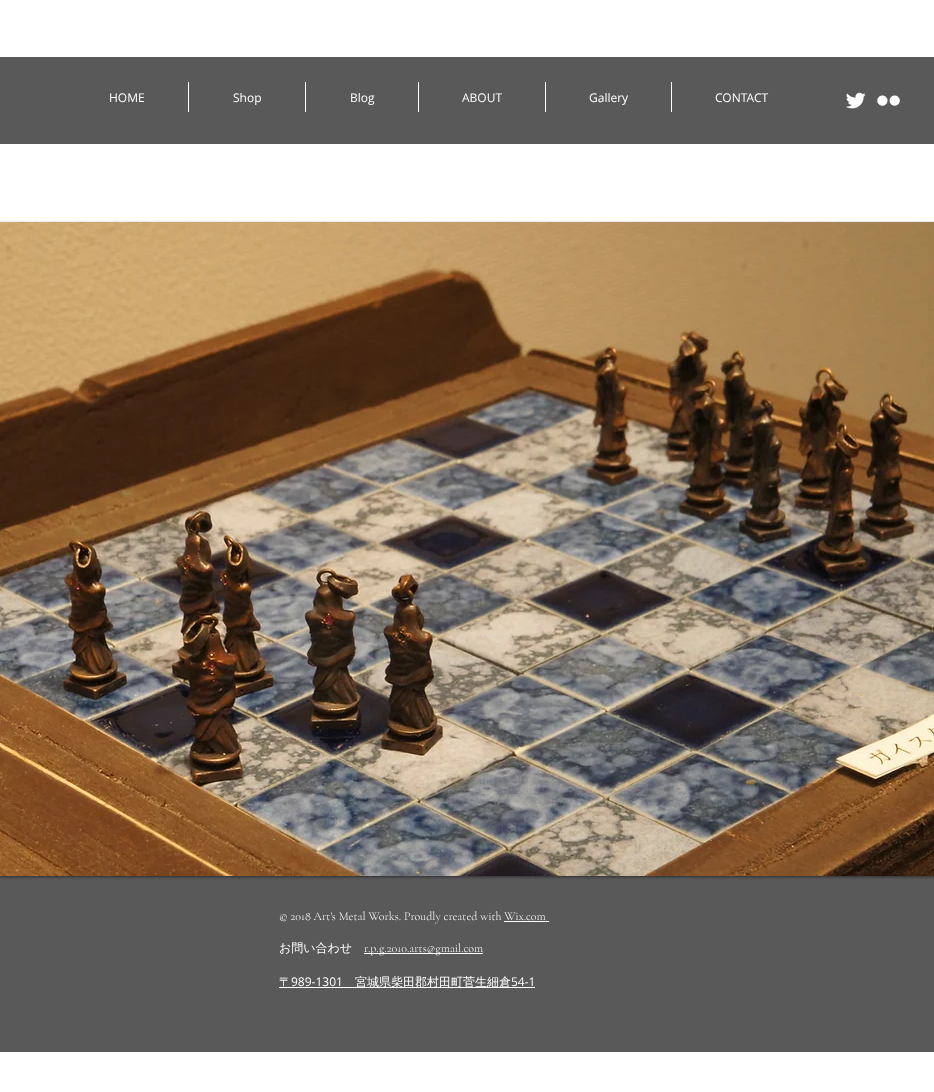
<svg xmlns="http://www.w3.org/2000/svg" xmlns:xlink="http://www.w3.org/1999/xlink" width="934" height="1092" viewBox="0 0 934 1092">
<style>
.cls-1{font:12px Open Sans;fill:#ffffff}
.cls-2{font:300 12px Cormorant Garamond;fill:#ffffff}
.cls-3{font:500 12px WenQuanYi Zen Hei;fill:#ffffff}
</style>
<rect width="100%" height="100%" fill="#ffffff"/>
<rect fill="#595959" x="0" y="57" width="934" height="87"/>
<rect fill="#ffffff" x="188" y="82" width="1" height="30"/>
<rect fill="#ffffff" x="305" y="82" width="1" height="30"/>
<rect fill="#ffffff" x="418" y="82" width="1" height="30"/>
<rect fill="#ffffff" x="545" y="82" width="1" height="30"/>
<rect fill="#ffffff" x="671" y="82" width="1" height="30"/>
<image xlink:href="image0.png" x="846" y="92" width="20" height="17"/>
<image xlink:href="image1.png" x="877" y="95" width="23" height="11"/>
<rect fill="#000000" fill-opacity="0.5" filter="blur(1.5px)" x="0" y="223" width="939" height="654"/>
<image xlink:href="image2.png" x="0" y="222" width="934" height="654"/>
<rect fill="#000000" fill-opacity="0.65" x="0" y="876" width="934" height="176"/>
<rect fill="#ffffff" x="504" y="921" width="45" height="1"/>
<rect fill="#ffffff" x="364" y="953" width="119" height="1"/>
<rect fill="#ffffff" x="279" y="987" width="256" height="1"/>
<text class="cls-1" x="109" y="102">HOME</text>
<text class="cls-1" x="233" y="102">Shop</text>
<text class="cls-1" x="350" y="102">Blog</text>
<text class="cls-1" x="462" y="102">ABOUT</text>
<text class="cls-1" x="589" y="102">Gallery</text>
<text class="cls-1" x="715" y="102">CONTACT</text>
<text class="cls-2" x="279" y="920">© 2018 Art's Metal Works. Proudly created with Wix.com</text>
<text class="cls-3" x="279" y="952">お問い合わせ</text>
<text class="cls-2" x="364" y="952">r.p.g.2010.arts@gmail.com</text>
<text class="cls-3" x="279" y="986">〒</text>
<text class="cls-1" x="291" y="986">989-1301</text>
<text class="cls-3" x="355" y="986">宮城県柴田郡村田町菅生細倉</text>
<text class="cls-1" x="511" y="986">54-1</text>
</svg>
